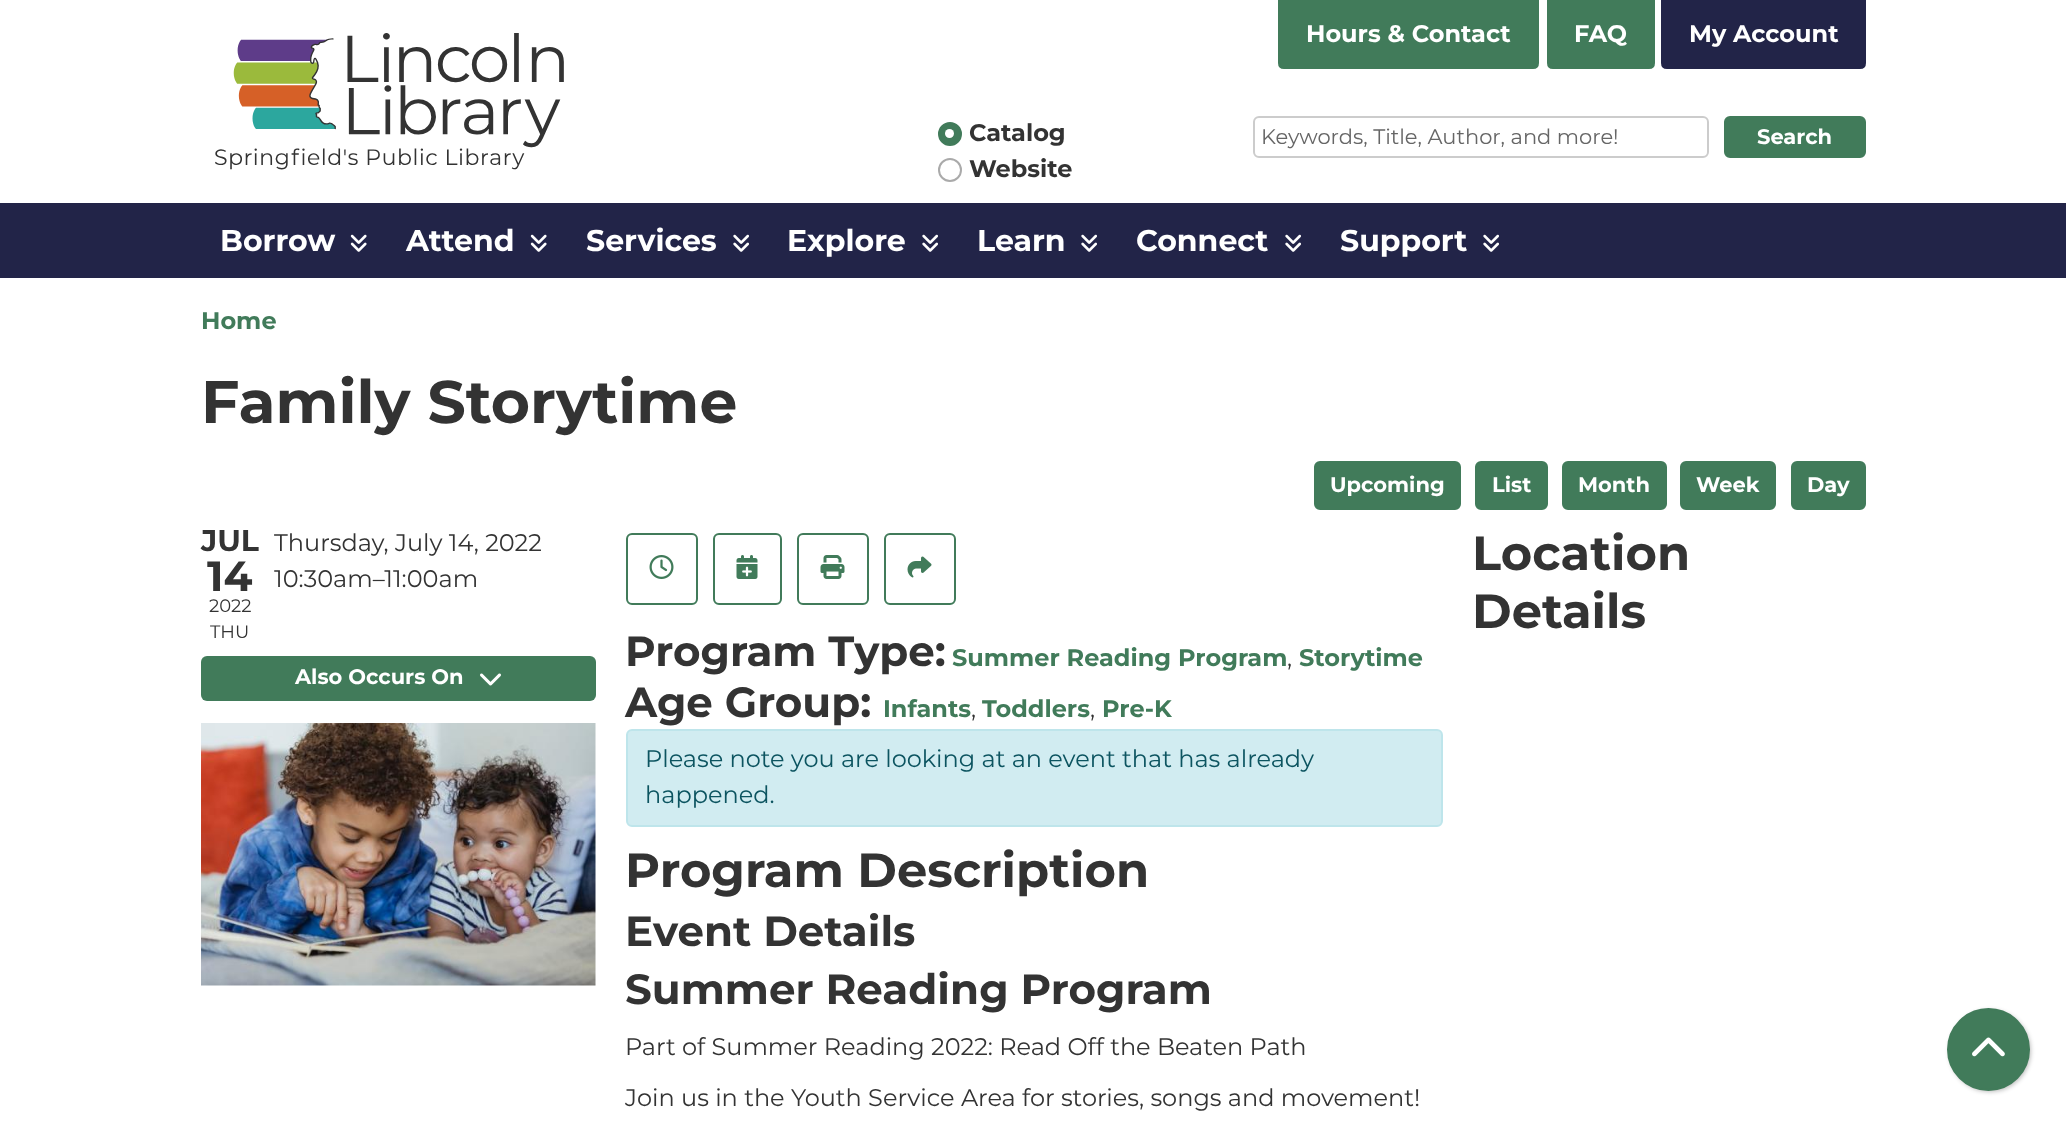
<svg xmlns="http://www.w3.org/2000/svg" xmlns:xlink="http://www.w3.org/1999/xlink" width="2066" height="1128" viewBox="0 0 2066 1128">
<style>
.cls-1{font:bold 24px Montserrat;fill:#ffffff}
.cls-2{font:bold 24px Montserrat;fill:#333333}
.cls-3{font:21px Montserrat;fill:#666666}
.cls-4{font:bold 21px Montserrat;fill:#ffffff}
.cls-5{font:bold 30px Montserrat;fill:#ffffff}
.cls-6{font:bold 24px Montserrat;fill:#417b5a}
.cls-7{font:bold 60px Montserrat;fill:#333333}
.cls-8{font:bold 30px Montserrat;fill:#333333}
.cls-9{font:bold 42px Montserrat;fill:#333333}
.cls-10{font:18px Montserrat;fill:#333333}
.cls-11{font:24px Montserrat;fill:#333333}
.cls-12{font:bold 48px Montserrat;fill:#333333}
.cls-13{font:24px Montserrat;fill:#0c5460}
</style>
<rect width="100%" height="100%" fill="#ffffff"/>
<image xlink:href="image0.png" x="215" y="33" width="349" height="137"/>
<path fill="#417b5a" stroke="#417b5a" stroke-width="2" d="M1279 1H1538V63C1538 66 1536 68 1533 68H1284C1281 68 1279 66 1279 63Z"/>
<path fill="#417b5a" stroke="#417b5a" stroke-width="2" d="M1548 1H1654V63C1654 66 1652 68 1649 68H1553C1550 68 1548 66 1548 63Z"/>
<path fill="#222448" stroke="#222448" stroke-width="2" d="M1662 1H1865V63C1865 66 1863 68 1860 68H1667C1664 68 1662 66 1662 63Z"/>
<circle fill="#417b5a" stroke="#417b5a" stroke-width="2" cx="950" cy="134" r="11"/>
<circle fill="#ffffff" cx="949.5" cy="133.5" r="4.5"/>
<circle fill="none" stroke="#aaaaaa" stroke-width="2" cx="950" cy="170" r="11"/>
<rect fill="none" stroke="#cccccc" stroke-width="2" x="1254" y="117" width="454" height="40" rx="5"/>
<rect fill="#417b5a" stroke="#417b5a" stroke-width="2" x="1725" y="117" width="140" height="40" rx="5"/>
<rect fill="#222448" x="0" y="203" width="2066" height="75"/>
<image xlink:href="image1.png" x="350" y="234" width="17" height="18"/>
<image xlink:href="image1.png" x="530" y="234" width="17" height="18"/>
<image xlink:href="image2.png" x="733" y="234" width="16" height="18"/>
<image xlink:href="image2.png" x="922" y="234" width="16" height="18"/>
<image xlink:href="image2.png" x="1081" y="234" width="16" height="18"/>
<image xlink:href="image2.png" x="1285" y="234" width="16" height="18"/>
<image xlink:href="image2.png" x="1483" y="234" width="16" height="18"/>
<rect fill="#417b5a" stroke="#417b5a" stroke-width="2" x="1315" y="462" width="145" height="47" rx="5"/>
<rect fill="#417b5a" stroke="#417b5a" stroke-width="2" x="1476" y="462" width="71" height="47" rx="5"/>
<rect fill="#417b5a" stroke="#417b5a" stroke-width="2" x="1563" y="462" width="103" height="47" rx="5"/>
<rect fill="#417b5a" stroke="#417b5a" stroke-width="2" x="1681" y="462" width="94" height="47" rx="5"/>
<rect fill="#417b5a" stroke="#417b5a" stroke-width="2" x="1792" y="462" width="73" height="47" rx="5"/>
<rect fill="#417b5a" x="201" y="656" width="395" height="45" rx="6"/>
<image xlink:href="image3.png" x="480" y="673" width="21" height="13"/>
<image xlink:href="image4.png" x="201" y="723" width="395" height="263"/>
<rect fill="none" stroke="#417b5a" stroke-width="2" x="627" y="534" width="70" height="70" rx="5"/>
<image xlink:href="image5.png" x="649" y="555" width="25" height="24"/>
<rect fill="none" stroke="#417b5a" stroke-width="2" x="714" y="534" width="67" height="70" rx="5"/>
<image xlink:href="image6.png" x="736" y="555" width="22" height="24"/>
<rect fill="none" stroke="#417b5a" stroke-width="2" x="798" y="534" width="70" height="70" rx="5"/>
<image xlink:href="image7.png" x="820" y="555" width="25" height="24"/>
<rect fill="none" stroke="#417b5a" stroke-width="2" x="885" y="534" width="70" height="70" rx="5"/>
<image xlink:href="image8.png" x="907" y="556" width="25" height="22"/>
<rect fill="#d1ecf1" stroke="#bee5eb" stroke-width="2" x="627" y="730" width="815" height="96" rx="5"/>
<rect fill="#000000" fill-opacity="0.25" filter="blur(2px)" x="1949" y="1010" width="82" height="82" rx="41"/>
<circle fill="#417b5a" stroke="#417b5a" stroke-width="2" cx="1988.5" cy="1049.5" r="40.5"/>
<image xlink:href="image9.png" x="1972" y="1037" width="33" height="20"/>
<text class="cls-1" x="1306" y="42">Hours &amp; Contact</text>
<text class="cls-1" x="1574" y="42">FAQ</text>
<text class="cls-1" x="1689" y="42">My Account</text>
<text class="cls-2"><tspan x="969" y="141">Catalog</tspan><tspan x="969" y="177">Website</tspan></text>
<text class="cls-3" x="1261" y="144">Keywords, Title, Author, and more!</text>
<text class="cls-4" x="1757" y="144">Search</text>
<text class="cls-5" x="220" y="251">Borrow</text>
<text class="cls-5" x="406" y="251">Attend</text>
<text class="cls-5" x="586" y="251">Services</text>
<text class="cls-5" x="787" y="251">Explore</text>
<text class="cls-5" x="977" y="251">Learn</text>
<text class="cls-5" x="1136" y="251">Connect</text>
<text class="cls-5" x="1340" y="251">Support</text>
<text class="cls-6" x="201" y="329">Home</text>
<text class="cls-7" x="201" y="423">Family Storytime</text>
<text class="cls-4" x="1330" y="492">Upcoming</text>
<text class="cls-4" x="1492" y="492">List</text>
<text class="cls-4" x="1578" y="492">Month</text>
<text class="cls-4" x="1696" y="492">Week</text>
<text class="cls-4" x="1807" y="492">Day</text>
<text class="cls-8" x="201" y="551">JUL</text>
<text class="cls-9" x="207" y="591">14</text>
<text class="cls-10" x="209" y="612">2022</text>
<text class="cls-10" x="210" y="638">THU</text>
<text class="cls-11"><tspan x="274" y="551">Thursday, July 14, 2022</tspan><tspan x="274" y="587">10:30am–11:00am</tspan></text>
<text class="cls-4" x="295" y="684">Also Occurs On</text>
<text class="cls-12"><tspan x="1472" y="570">Location</tspan><tspan x="1472" y="628">Details</tspan></text>
<text class="cls-9" x="625" y="666">Program Type:</text>
<text class="cls-6" x="952" y="666">Summer Reading Program</text>
<text class="cls-11" x="1287" y="666">,</text>
<text class="cls-6" x="1299" y="666">Storytime</text>
<text class="cls-9" x="625" y="717">Age Group:</text>
<text class="cls-6" x="883" y="717">Infants</text>
<text class="cls-11" x="971" y="717">,</text>
<text class="cls-6" x="982" y="717">Toddlers</text>
<text class="cls-11" x="1090" y="717">,</text>
<text class="cls-6" x="1102" y="717">Pre-K</text>
<text class="cls-13"><tspan x="645" y="767">Please note you are looking at an event that has already</tspan><tspan x="645" y="803">happened.</tspan></text>
<text class="cls-12" x="625" y="887">Program Description</text>
<text class="cls-9"><tspan x="625" y="946">Event Details</tspan><tspan x="625" y="1004">Summer Reading Program</tspan></text>
<text class="cls-11" x="625" y="1055">Part of Summer Reading 2022: Read Off the Beaten Path</text>
<text class="cls-11" x="625" y="1106">Join us in the Youth Service Area for stories, songs and movement!</text>
</svg>
